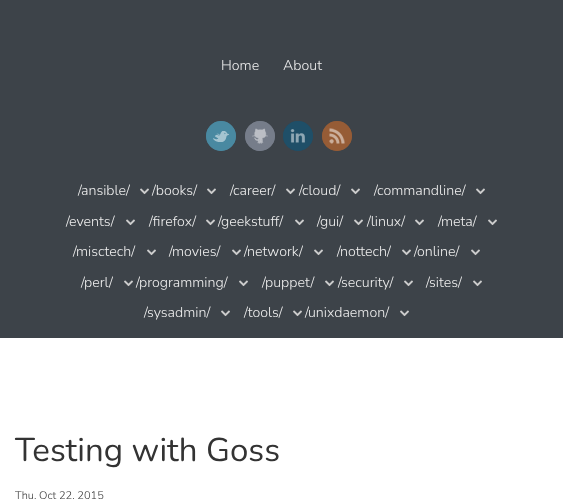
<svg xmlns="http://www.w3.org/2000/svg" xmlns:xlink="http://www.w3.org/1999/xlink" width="563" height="499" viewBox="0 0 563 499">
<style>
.cls-1{font:300 14.25px Nunito;fill:#efefef}
.cls-2{font:33px Nunito;fill:#333333}
.cls-3{font:300 11px Nunito;fill:#333333}
</style>
<rect width="100%" height="100%" fill="#3d4349"/>
<circle fill="#4989a1" cx="221" cy="136" r="15"/>
<image xlink:href="image0.png" x="213" y="131" width="16" height="11"/>
<circle fill="none" stroke="#4989a1" cx="221" cy="136" r="14.5"/>
<circle fill="#767d8a" cx="260" cy="136" r="15"/>
<image xlink:href="image1.png" x="252" y="128" width="16" height="16"/>
<circle fill="none" stroke="#767d8a" cx="260" cy="136" r="14.5"/>
<circle fill="#1f4f68" cx="298" cy="136" r="15"/>
<image xlink:href="image2.png" x="290" y="129" width="15" height="14"/>
<circle fill="none" stroke="#1f4f68" cx="298" cy="136" r="14.5"/>
<circle fill="#965c36" cx="337" cy="136" r="15"/>
<image xlink:href="image3.png" x="329" y="128" width="16" height="16"/>
<circle fill="none" stroke="#965c36" cx="337" cy="136" r="14.5"/>
<image xlink:href="image4.png" x="140" y="188" width="9" height="7"/>
<image xlink:href="image4.png" x="207" y="188" width="9" height="7"/>
<image xlink:href="image4.png" x="286" y="188" width="9" height="7"/>
<image xlink:href="image4.png" x="351" y="188" width="9" height="7"/>
<image xlink:href="image4.png" x="476" y="188" width="9" height="7"/>
<image xlink:href="image4.png" x="126" y="219" width="9" height="7"/>
<image xlink:href="image4.png" x="206" y="219" width="9" height="7"/>
<image xlink:href="image4.png" x="295" y="219" width="9" height="7"/>
<image xlink:href="image4.png" x="354" y="219" width="9" height="7"/>
<image xlink:href="image4.png" x="415" y="219" width="9" height="7"/>
<image xlink:href="image4.png" x="488" y="219" width="9" height="7"/>
<image xlink:href="image4.png" x="147" y="249" width="9" height="7"/>
<image xlink:href="image4.png" x="232" y="249" width="9" height="7"/>
<image xlink:href="image4.png" x="314" y="249" width="9" height="7"/>
<image xlink:href="image4.png" x="402" y="249" width="9" height="7"/>
<image xlink:href="image4.png" x="471" y="249" width="9" height="7"/>
<image xlink:href="image4.png" x="124" y="280" width="9" height="7"/>
<image xlink:href="image4.png" x="239" y="280" width="9" height="7"/>
<image xlink:href="image4.png" x="325" y="280" width="9" height="7"/>
<image xlink:href="image4.png" x="404" y="280" width="9" height="7"/>
<image xlink:href="image4.png" x="473" y="280" width="9" height="7"/>
<image xlink:href="image4.png" x="221" y="310" width="9" height="7"/>
<image xlink:href="image4.png" x="293" y="310" width="9" height="7"/>
<image xlink:href="image4.png" x="400" y="310" width="9" height="7"/>
<rect fill="#ffffff" x="0" y="338" width="563" height="161"/>
<text class="cls-1" x="221" y="70">Home</text>
<text class="cls-1" x="283" y="70">About</text>
<text class="cls-1" x="78" y="195">/ansible/</text>
<text class="cls-1" x="152" y="195">/books/</text>
<text class="cls-1" x="230" y="195">/career/</text>
<text class="cls-1" x="299" y="195">/cloud/</text>
<text class="cls-1" x="374" y="195">/commandline/</text>
<text class="cls-1" x="66" y="226">/events/</text>
<text class="cls-1" x="149" y="226">/firefox/</text>
<text class="cls-1" x="218" y="226">/geekstuff/</text>
<text class="cls-1" x="317" y="226">/gui/</text>
<text class="cls-1" x="367" y="226">/linux/</text>
<text class="cls-1" x="438" y="226">/meta/</text>
<text class="cls-1" x="73" y="256">/misctech/</text>
<text class="cls-1" x="169" y="256">/movies/</text>
<text class="cls-1" x="244" y="256">/network/</text>
<text class="cls-1" x="337" y="256">/nottech/</text>
<text class="cls-1" x="414" y="256">/online/</text>
<text class="cls-1" x="81" y="287">/perl/</text>
<text class="cls-1" x="136" y="287">/programming/</text>
<text class="cls-1" x="262" y="287">/puppet/</text>
<text class="cls-1" x="338" y="287">/security/</text>
<text class="cls-1" x="426" y="287">/sites/</text>
<text class="cls-1" x="144" y="317">/sysadmin/</text>
<text class="cls-1" x="244" y="317">/tools/</text>
<text class="cls-1" x="305" y="317">/unixdaemon/</text>
<text class="cls-2" x="15" y="461">Testing with Goss</text>
<text class="cls-3" x="15" y="499">Thu, Oct 22, 2015</text>
</svg>
